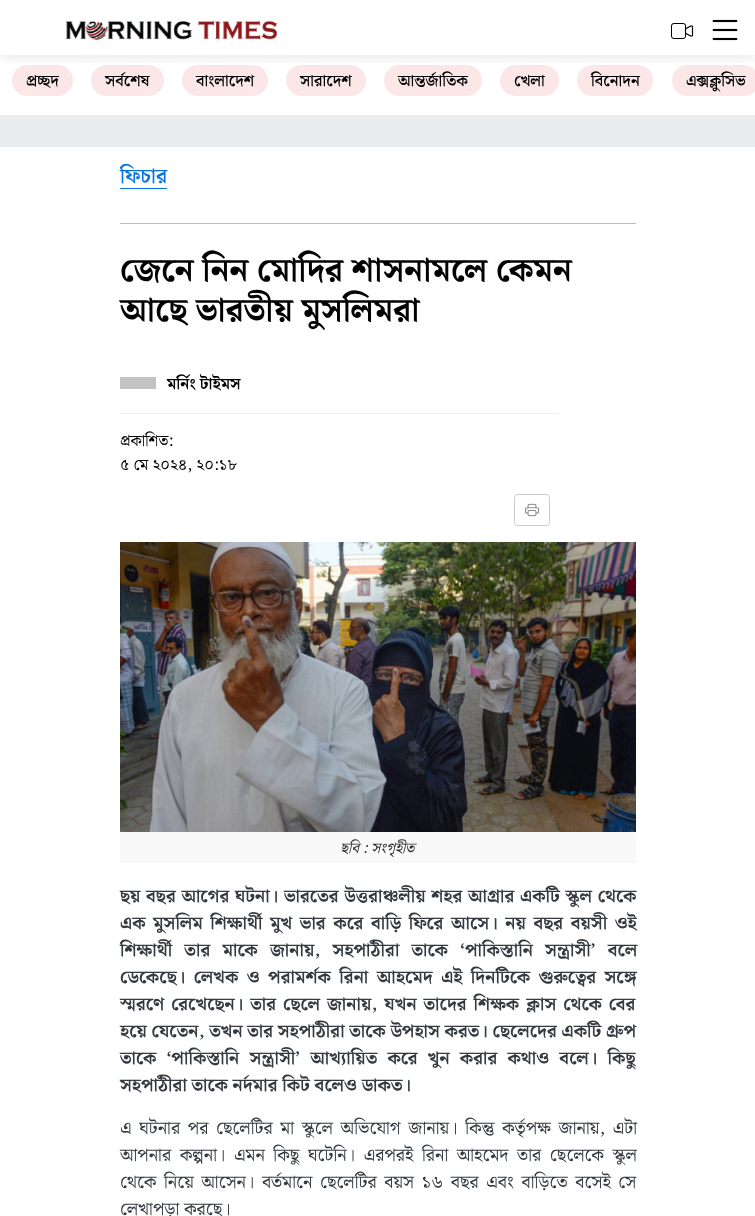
<svg xmlns="http://www.w3.org/2000/svg" xmlns:xlink="http://www.w3.org/1999/xlink" width="755" height="1216" viewBox="0 0 755 1216">
<style>
.cls-1{font:600 16px Noto Serif Bengali;fill:#000000}
.cls-2{font:600 21px Noto Serif Bengali;fill:#0573e6}
.cls-3{font:bold 33.3px Noto Serif Bengali;fill:#000000}
.cls-4{font:bold 16px Noto Serif Bengali;fill:#000000}
.cls-5{font:16px Noto Serif Bengali;fill:#000000}
.cls-6{font:italic 15px Noto Serif Bengali;fill:#282828}
.cls-7{font:bold 18px Noto Serif Bengali;fill:#343a40}
.cls-8{font:18px Noto Serif Bengali;fill:#343a40}
</style>
<defs>
<clipPath id="clip1"><rect x="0" y="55" width="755" height="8"/></clipPath>
</defs>
<rect width="100%" height="100%" fill="#ffffff"/>
<rect fill="#fbe7e8" x="12" y="65" width="61" height="31" rx="15.5"/>
<rect fill="#fbe7e8" x="91" y="65" width="73" height="31" rx="15.5"/>
<rect fill="#fbe7e8" x="182" y="65" width="86" height="31" rx="15.5"/>
<rect fill="#fbe7e8" x="286" y="65" width="80" height="31" rx="15.5"/>
<rect fill="#fbe7e8" x="384" y="65" width="98" height="31" rx="15.5"/>
<rect fill="#fbe7e8" x="500" y="65" width="59" height="31" rx="15.5"/>
<rect fill="#fbe7e8" x="577" y="65" width="76" height="31" rx="15.5"/>
<rect fill="#fbe7e8" x="672" y="65" width="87" height="31" rx="15.5"/>
<g clip-path="url(#clip1)">
<rect fill="#000000" fill-opacity="0.1" filter="blur(7.5px)" x="0" y="2" width="755" height="55"/>
</g>
<image xlink:href="image0.png" x="65" y="20" width="213" height="20"/>
<image xlink:href="image1.png" x="671" y="23" width="23" height="16"/>
<image xlink:href="image2.png" x="712" y="19" width="26" height="22"/>
<rect fill="#e9ecef" x="0" y="115" width="755" height="32"/>
<rect fill="#0573e6" x="120" y="188" width="47" height="1"/>
<rect fill="#bfbfbf" x="120" y="223" width="516" height="1"/>
<rect fill="#c3c3c3" x="120" y="377" width="36" height="12"/>
<rect fill="#eeeeee" x="120" y="413" width="438" height="1"/>
<rect fill="none" stroke="#cccccc" x="514.5" y="494.5" width="35" height="31" rx="3.5"/>
<image xlink:href="image3.png" x="525" y="503" width="14" height="14"/>
<image xlink:href="image4.png" x="120" y="542" width="516" height="290"/>
<rect fill="#f9f9f9" x="120" y="832" width="516" height="31"/>
<text class="cls-1" x="26" y="86">প্রচ্ছদ</text>
<text class="cls-1" x="105" y="86">সর্বশেষ</text>
<text class="cls-1" x="196" y="86">বাংলাদেশ</text>
<text class="cls-1" x="300" y="86">সারাদেশ</text>
<text class="cls-1" x="398" y="86">আন্তর্জাতিক</text>
<text class="cls-1" x="514" y="86">খেলা</text>
<text class="cls-1" x="591" y="86">বিনোদন</text>
<text class="cls-1" x="686" y="86">এক্সক্লুসিভ</text>
<text class="cls-2" x="120" y="183">ফিচার</text>
<text class="cls-3"><tspan x="120" y="281">জেনে নিন মোদির শাসনামলে কেমন</tspan><tspan x="120" y="321">আছে ভারতীয় মুসলিমরা</tspan></text>
<text class="cls-4" x="167" y="389">মর্নিং টাইমস</text>
<text class="cls-5"><tspan x="120" y="446">প্রকাশিত:</tspan><tspan x="120" y="470">৫ মে ২০২৪, ২০:১৮</tspan></text>
<text class="cls-6" x="340" y="853">ছবি : সংগৃহীত</text>
<text class="cls-7"><tspan x="120" y="902" word-spacing="1">ছয় বছর আগের ঘটনা। ভারতের উত্তরাঞ্চলীয় শহর আগ্রার একটি স্কুল থেকে</tspan><tspan x="120" y="929" word-spacing="2.9">এক মুসলিম শিক্ষার্থী মুখ ভার করে বাড়ি ফিরে আসে। নয় বছর বয়সী ওই</tspan><tspan x="120" y="956" word-spacing="7.5">শিক্ষার্থী তার মাকে জানায়, সহপাঠীরা তাকে ‘পাকিস্তানি সন্ত্রাসী’ বলে</tspan><tspan x="120" y="983" word-spacing="3.75">ডেকেছে। লেখক ও পরামর্শক রিনা আহমেদ এই দিনটিকে গুরুত্বের সঙ্গে</tspan><tspan x="120" y="1010" word-spacing="2.25">স্মরণে রেখেছেন। তার ছেলে জানায়, যখন তাদের শিক্ষক ক্লাস থেকে বের</tspan><tspan x="120" y="1037">হয়ে যেতেন, তখন তার সহপাঠীরা তাকে উপহাস করত। ছেলেদের একটি গ্রুপ</tspan><tspan x="120" y="1064" word-spacing="5.5">তাকে ‘পাকিস্তানি সন্ত্রাসী’ আখ্যায়িত করে খুন করার কথাও বলে। কিছু</tspan><tspan x="120" y="1091">সহপাঠীরা তাকে নর্দমার কিট বলেও ডাকত।</tspan></text>
<text class="cls-8"><tspan x="120" y="1134" word-spacing="3">এ ঘটনার পর ছেলেটির মা স্কুলে অভিযোগ জানায়। কিন্তু কর্তৃপক্ষ জানায়, এটা</tspan><tspan x="120" y="1161" word-spacing="3.9">আপনার কল্পনা। এমন কিছু ঘটেনি। এরপরই রিনা আহমেদ তার ছেলেকে স্কুল</tspan><tspan x="120" y="1188" word-spacing="2.9">থেকে নিয়ে আসেন। বর্তমানে ছেলেটির বয়স ১৬ বছর এবং বাড়িতে বসেই সে</tspan><tspan x="120" y="1215">লেখাপড়া করছে।</tspan></text>
</svg>
